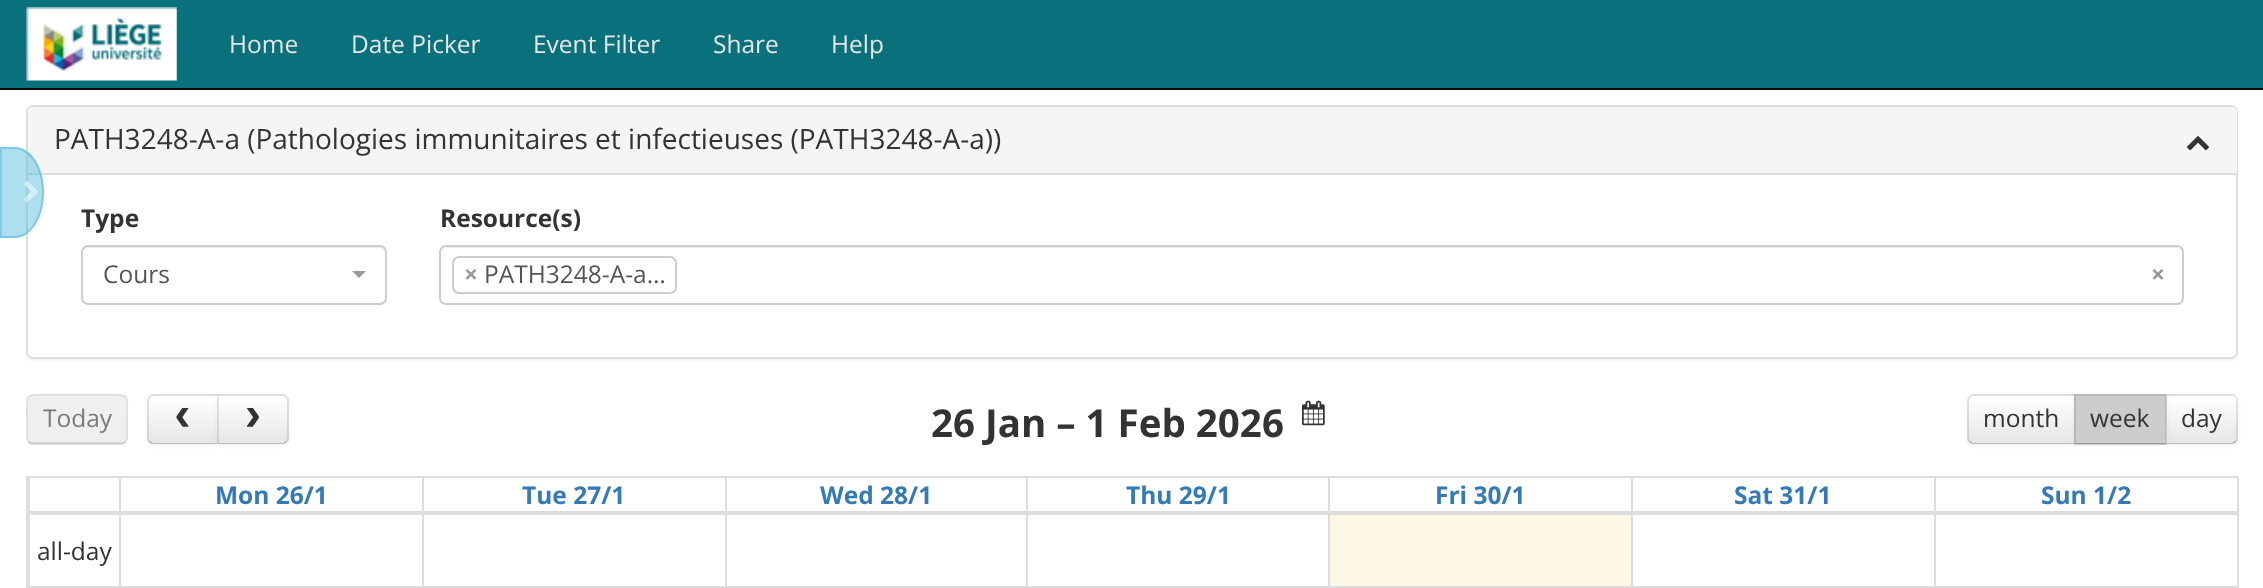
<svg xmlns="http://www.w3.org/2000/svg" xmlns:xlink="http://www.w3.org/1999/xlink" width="2263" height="588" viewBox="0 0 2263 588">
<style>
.cls-1{font:24.5px Open Sans;fill:#e6e6e6}
.cls-2{font:28px Open Sans;fill:#333333}
.cls-3{font:bold 24.5px Open Sans;fill:#333333}
.cls-4{font:24.5px Open Sans;fill:#555555}
.cls-5{font:bold 24.5px Open Sans;fill:#999999}
.cls-6{font:24.5px Open Sans;fill:#7a7a7a}
.cls-7{font:bold 49px Liberation Mono;fill:#333333}
.cls-8{font:bold 38.5px Open Sans;fill:#333333}
.cls-9{font:24.5px Open Sans;fill:#333333}
.cls-10{font:bold 24.5px Open Sans;fill:#337ab7}
</style>
<defs>
<clipPath id="clip1"><path d="M154 394H219V445H154C150 445 147 442 147 438V401C147 397 150 394 154 394Z"/></clipPath>
<linearGradient id="g1" gradientUnits="userSpaceOnUse" x1="183" y1="396" x2="183" y2="443"><stop offset="0" stop-color="#ffffff"/><stop offset="1" stop-color="#e6e6e6"/></linearGradient>
<clipPath id="clip2"><path d="M217 394H282C286 394 289 397 289 401V438C289 442 286 445 282 445H217Z"/></clipPath>
<linearGradient id="g2" gradientUnits="userSpaceOnUse" x1="253" y1="396" x2="253" y2="443"><stop offset="0" stop-color="#ffffff"/><stop offset="1" stop-color="#e6e6e6"/></linearGradient>
<clipPath id="clip3"><path d="M1974 394H2076V445H1974C1970 445 1967 442 1967 438V401C1967 397 1970 394 1974 394Z"/></clipPath>
<linearGradient id="g3" gradientUnits="userSpaceOnUse" x1="2021" y1="396" x2="2021" y2="443"><stop offset="0" stop-color="#ffffff"/><stop offset="1" stop-color="#e6e6e6"/></linearGradient>
<clipPath id="clip4"><path d="M2165 394H2231C2235 394 2238 397 2238 401V438C2238 442 2235 445 2231 445H2165Z"/></clipPath>
<linearGradient id="g4" gradientUnits="userSpaceOnUse" x1="2202" y1="396" x2="2202" y2="443"><stop offset="0" stop-color="#ffffff"/><stop offset="1" stop-color="#e6e6e6"/></linearGradient>
<clipPath id="clip5"><rect x="168" y="408" width="30" height="24"/></clipPath>
<clipPath id="clip6"><rect x="238" y="408" width="30" height="24"/></clipPath>
</defs>
<rect width="100%" height="100%" fill="#ffffff"/>
<rect fill="#09717c" x="0" y="0" width="2263" height="88"/>
<rect fill="#080808" x="0" y="88" width="2263" height="2"/>
<image xlink:href="image0.png" x="26" y="7" width="151" height="74"/>
<rect fill="#000000" fill-opacity="0.05" filter="blur(1px)" x="26" y="107" width="2212" height="254" rx="7"/>
<rect fill="#ffffff" stroke="#dddddd" stroke-width="2" x="27" y="106" width="2210" height="252" rx="6"/>
<path fill="#f5f5f5" d="M33 107H2232C2235 107 2237 109 2237 112V175H28V112C28 109 30 107 33 107Z"/>
<rect fill="#dddddd" x="28" y="173" width="2209" height="2"/>
<path fill="#5bc0de" fill-opacity="0.5" d="M0 147H15C31 147 44 167 44 192C44 218 31 238 15 238H0Z"/>
<path fill="none" stroke="#46b8da" stroke-opacity="0.5" stroke-width="1.8" d="M1 148H14.5C30 148 43 168 43 192.5C43 217 30 237 14.5 237H1Z"/>
<image xlink:href="image1.png" x="24" y="180" width="14" height="23"/>
<image xlink:href="image2.png" x="2187" y="136" width="22" height="15"/>
<path fill="#ececec" d="M88 248H380C383 248 385 251 385 254C385 251 384 247 380 247H87C83 247 82 251 82 254C82 251 85 248 88 248Z"/>
<rect fill="none" stroke="#cccccc" stroke-width="2" x="82" y="246" width="304" height="58" rx="6"/>
<path fill="#999999" d="M352 271H366L359 278Z"/>
<path fill="#ececec" d="M446 248H2177C2180 248 2182 251 2182 254C2182 251 2181 247 2177 247H446C442 247 441 251 441 254C441 251 443 248 446 248Z"/>
<rect fill="none" stroke="#cccccc" stroke-width="2" x="440" y="246" width="1743" height="58" rx="6"/>
<rect fill="none" stroke="#cccccc" stroke-width="2" x="453" y="257" width="223" height="36" rx="6"/>
<rect fill="#efefef" x="26" y="394" width="102" height="51" rx="7"/>
<path fill="none" stroke="#cacaca" stroke-width="1.8" d="M125 442C124 443 122.5 443.5 121 443.5H33C31.5 443.5 30 443 29 442"/>
<path fill="none" stroke="#595959" stroke-opacity="0.1" stroke-width="1.8" d="M29 442C26 439 27 434.5 27 431.5V419C27 393.5 23 394.5 48 394.5H106C131 394.5 127 393.5 127 419V431.5C127 434.5 128 439 125 442"/>
<rect fill="#000000" fill-opacity="0.05" filter="blur(2px)" x="147" y="396" width="72" height="50" rx="7"/>
<path fill="#f5f5f5" d="M154 394H219V445H154C150 445 147 442 147 438V401C147 397 150 394 154 394Z"/>
<g clip-path="url(#clip1)">
<rect fill="url(#g1)" x="147" y="396" width="70" height="47"/>
</g>
<path fill="#000000" fill-opacity="0.1" d="M154 394C152 394 150 395 149 396L151 397C151 396 153 396 154 396H216L218 394Z"/>
<path fill="#000000" fill-opacity="0.1" d="M219 444L217 443V396H216L218 394Z"/>
<path fill="#000000" fill-opacity="0.25" d="M218 444H154C152 444 150 443 149 442L150 441L153 443H217Z"/>
<path fill="#000000" fill-opacity="0.1" d="M147 401V438C147 440 148 441 149 442L150 441C149 440 149 439 149 438V401C149 399 150 398 151 397L149 396C148 397 147 399 147 401Z"/>
<rect fill="#000000" fill-opacity="0.05" filter="blur(2px)" x="217" y="396" width="72" height="50" rx="7"/>
<path fill="#f5f5f5" d="M217 394H282C286 394 289 397 289 401V438C289 442 286 445 282 445H217Z"/>
<g clip-path="url(#clip2)">
<rect fill="url(#g2)" x="217" y="396" width="72" height="47"/>
</g>
<path fill="#000000" fill-opacity="0.1" d="M287 396C286 395 284 394 282 394H217L219 396H282C283 396 285 396 285 397Z"/>
<path fill="#000000" fill-opacity="0.1" d="M287 396L289 399V440L287 442L286 441C286 440 287 439 287 438V401C287 399 286 398 285 397Z"/>
<path fill="#000000" fill-opacity="0.25" d="M287 442C285 443 284 444 282 444H218L219 442V443H283L286 441Z"/>
<path fill="#000000" fill-opacity="0.1" d="M219 396V442L217 444V394Z"/>
<image xlink:href="image3.png" x="1302" y="400" width="23" height="26"/>
<rect fill="#000000" fill-opacity="0.05" filter="blur(2px)" x="1967" y="396" width="109" height="50" rx="7"/>
<path fill="#f5f5f5" d="M1974 394H2076V445H1974C1970 445 1967 442 1967 438V401C1967 397 1970 394 1974 394Z"/>
<g clip-path="url(#clip3)">
<rect fill="url(#g3)" x="1967" y="396" width="107" height="47"/>
</g>
<path fill="#000000" fill-opacity="0.1" d="M1974 394C1972 394 1970 395 1969 396L1971 397L1973 396H2073L2075 394Z"/>
<path fill="#000000" fill-opacity="0.1" d="M2076 444L2074 443V396H2073L2075 394Z"/>
<path fill="#000000" fill-opacity="0.25" d="M2075 444H1974C1972 444 1970 443 1969 442L1970 441L1973 443H2074Z"/>
<path fill="#000000" fill-opacity="0.1" d="M1967 401V438C1967 440 1968 441 1969 442L1970 441C1969 440 1969 439 1969 438V401C1969 399 1970 398 1971 397L1969 396C1968 397 1967 399 1967 401Z"/>
<rect fill="#000000" fill-opacity="0.05" filter="blur(2px)" x="2165" y="396" width="73" height="50" rx="7"/>
<path fill="#f5f5f5" d="M2165 394H2231C2235 394 2238 397 2238 401V438C2238 442 2235 445 2231 445H2165Z"/>
<g clip-path="url(#clip4)">
<rect fill="url(#g4)" x="2167" y="396" width="71" height="47"/>
</g>
<path fill="#ffffff" fill-opacity="0.2" d="M2167 396V397H2231C2234 397 2236 400 2236 402V439L2235 442C2236 441 2237 439 2237 438V401C2237 398 2235 396 2232 396Z"/>
<path fill="#000000" fill-opacity="0.1" d="M2165 394L2167 396H2231C2232 396 2234 396 2235 397L2236 396C2235 395 2233 394 2231 394Z"/>
<path fill="#000000" fill-opacity="0.1" d="M2236 396C2237 397 2238 399 2238 401V438C2238 440 2237 441 2236 442L2235 441C2236 440 2236 439 2236 438V401C2236 400 2236 398 2235 397Z"/>
<path fill="#000000" fill-opacity="0.25" d="M2236 442C2235 443 2233 444 2231 444H2165L2166 443H2232L2235 441Z"/>
<rect fill="#000000" fill-opacity="0.05" filter="blur(2px)" x="2074" y="396" width="93" height="50"/>
<rect fill="#cccccc" x="2074" y="394" width="93" height="51"/>
<path fill="#b8b8b8" d="M2074 394H2166L2165 396H2076Z"/>
<path fill="#000000" fill-opacity="0.1" d="M2166 394V444L2165 443V396Z"/>
<path fill="#000000" fill-opacity="0.25" d="M2166 444H2074L2076 443H2165Z"/>
<path fill="#000000" fill-opacity="0.1" d="M2074 444V394L2076 396V443Z"/>
<rect fill="#dddddd" x="26" y="476" width="2212" height="2"/>
<rect fill="#dddddd" x="26" y="513" width="2212" height="2"/>
<rect fill="#dddddd" x="2237" y="513" width="2" height="75"/>
<rect fill="#dddddd" x="2237" y="476" width="2" height="39"/>
<rect fill="#dddddd" x="26" y="513" width="2" height="75"/>
<rect fill="#dddddd" x="26" y="476" width="2" height="39"/>
<rect fill="#dddddd" x="1934" y="511" width="304" height="2"/>
<rect fill="#dddddd" x="1934" y="476" width="2" height="37"/>
<rect fill="#dddddd" x="1631" y="511" width="305" height="2"/>
<rect fill="#dddddd" x="1631" y="476" width="2" height="37"/>
<rect fill="#dddddd" x="1328" y="511" width="305" height="2"/>
<rect fill="#dddddd" x="1328" y="476" width="2" height="37"/>
<rect fill="#dddddd" x="1026" y="511" width="304" height="2"/>
<rect fill="#dddddd" x="1026" y="476" width="2" height="37"/>
<rect fill="#dddddd" x="725" y="511" width="302" height="2"/>
<rect fill="#dddddd" x="725" y="476" width="2" height="37"/>
<rect fill="#dddddd" x="422" y="511" width="304" height="2"/>
<rect fill="#dddddd" x="422" y="476" width="2" height="37"/>
<rect fill="#dddddd" x="119" y="511" width="305" height="2"/>
<rect fill="#dddddd" x="119" y="476" width="2" height="37"/>
<rect fill="#dddddd" x="28" y="511" width="93" height="2"/>
<rect fill="#dddddd" x="28" y="476" width="2" height="37"/>
<rect fill="#dddddd" x="1934" y="586" width="304" height="2"/>
<rect fill="#dddddd" x="1934" y="513" width="2" height="75"/>
<rect fill="#dddddd" x="1631" y="586" width="305" height="2"/>
<rect fill="#dddddd" x="1631" y="513" width="2" height="75"/>
<rect fill="#dddddd" x="1328" y="586" width="305" height="2"/>
<rect fill="#dddddd" x="1328" y="513" width="2" height="75"/>
<rect fill="#dddddd" x="1026" y="586" width="304" height="2"/>
<rect fill="#dddddd" x="1026" y="513" width="2" height="75"/>
<rect fill="#dddddd" x="725" y="586" width="302" height="2"/>
<rect fill="#dddddd" x="725" y="513" width="2" height="75"/>
<rect fill="#dddddd" x="422" y="586" width="304" height="2"/>
<rect fill="#dddddd" x="422" y="513" width="2" height="75"/>
<rect fill="#dddddd" x="119" y="586" width="305" height="2"/>
<rect fill="#dddddd" x="119" y="513" width="2" height="75"/>
<rect fill="#dddddd" x="28" y="586" width="93" height="2"/>
<rect fill="#dddddd" x="28" y="513" width="2" height="75"/>
<rect fill="#fcf8e3" x="1330" y="515" width="301" height="71"/>
<text class="cls-1" x="229" y="53">Home</text>
<text class="cls-1" x="351" y="53">Date Picker</text>
<text class="cls-1" x="533" y="53">Event Filter</text>
<text class="cls-1" x="713" y="53">Share</text>
<text class="cls-1" x="831" y="53">Help</text>
<text class="cls-2" x="54" y="149">PATH3248-A-a (Pathologies immunitaires et infectieuses (PATH3248-A-a))</text>
<text class="cls-3" x="81" y="227">Type</text>
<text class="cls-4" x="103" y="283">Cours</text>
<text class="cls-3" x="440" y="227">Resource(s)</text>
<text class="cls-5" x="464" y="283">×</text>
<text class="cls-4" x="484" y="283">PATH3248-A-a…</text>
<text class="cls-5" x="2151" y="283">×</text>
<text class="cls-6" x="43" y="427">Today</text>
<g clip-path="url(#clip5)">
<text class="cls-7" x="168" y="430">‹</text>
</g>
<g clip-path="url(#clip6)">
<text class="cls-7" x="238" y="430">›</text>
</g>
<text class="cls-8" x="931" y="437">26 Jan – 1 Feb 2026</text>
<text class="cls-9" x="1983" y="427">month</text>
<text class="cls-9" x="2090" y="427">week</text>
<text class="cls-9" x="2181" y="427">day</text>
<text class="cls-10" x="215" y="504">Mon 26/1</text>
<text class="cls-10" x="522" y="504">Tue 27/1</text>
<text class="cls-10" x="820" y="504">Wed 28/1</text>
<text class="cls-10" x="1126" y="504">Thu 29/1</text>
<text class="cls-10" x="1435" y="504">Fri 30/1</text>
<text class="cls-10" x="1734" y="504">Sat 31/1</text>
<text class="cls-10" x="2041" y="504">Sun 1/2</text>
<text class="cls-9" x="37" y="560">all-day</text>
</svg>
